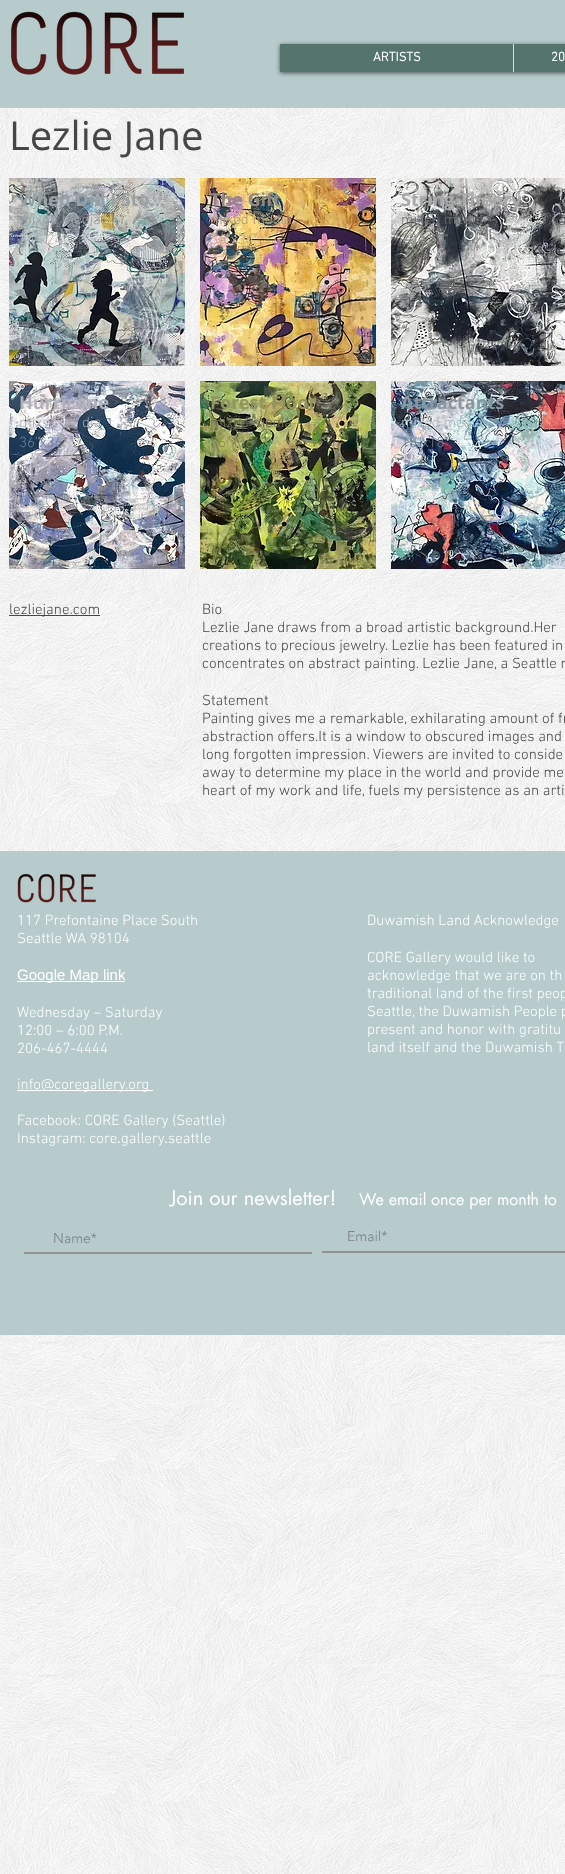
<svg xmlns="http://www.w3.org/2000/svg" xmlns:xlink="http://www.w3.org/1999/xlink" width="565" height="1874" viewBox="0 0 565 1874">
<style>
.cls-1{font:bold 13px 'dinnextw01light';fill:#ffffff}
.cls-2{font:40px Open Sans;fill:#464646}
.cls-3{font:bold 18px Open Sans;fill:#9ba2a5}
.cls-4{font:300 15px 'dinnextw01light';fill:#9ba2a5}
.cls-5{font:300 15px 'dinnextw01light';fill:#b3babc}
.cls-6{font:bold 18px Open Sans;fill:#938980}
.cls-7{font:300 15px 'dinnextw01light';fill:#ac9876}
.cls-8{font:300 15px 'dinnextw01light';fill:#c7af8b}
.cls-9{font:bold 18px Open Sans;fill:#a8a9a8}
.cls-10{font:300 15px 'dinnextw01light';fill:#6c7072}
.cls-11{font:300 15px 'dinnextw01light';fill:#898b88}
.cls-12{font:bold 18px Open Sans;fill:#b1b2bc}
.cls-13{font:300 15px 'dinnextw01light';fill:#a4a8b4}
.cls-14{font:300 15px 'dinnextw01light';fill:#707e97}
.cls-15{font:bold 18px Open Sans;fill:#91955e}
.cls-16{font:300 15px 'dinnextw01light';fill:#6d704b}
.cls-17{font:300 15px 'dinnextw01light';fill:#818b51}
.cls-18{font:bold 18px Open Sans;fill:#8997a2}
.cls-19{font:300 15px 'dinnextw01light';fill:#aabac3}
.cls-20{font:300 15px 'dinnextw01light';fill:#7b8495}
.cls-21{font:300 15px 'dinnextw01light';fill:#464646}
.cls-22{font:300 15px 'dinnextw01light';fill:#ffffff}
.cls-23{font:15px Liberation Sans;fill:#ffffff}
.cls-24{font:bold 15px 'dinnextw01light';fill:#ffffff}
.cls-25{font:20px futura;fill:#ffffff}
.cls-26{font:16px futura;fill:#ffffff}
.cls-27{font:300 14px 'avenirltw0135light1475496';fill:#7f808a}
</style>
<rect width="100%" height="100%" fill="#ffffff"/>
<rect fill="#b7cbcc" x="0" y="0" width="565" height="108"/>
<image xlink:href="image0.png" x="11" y="11" width="174" height="64"/>
<rect fill="#000000" fill-opacity="0.6" filter="blur(2px)" x="280" y="45" width="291" height="28"/>
<rect fill="#55746d" x="280" y="44" width="285" height="28"/>
<rect fill="#c5e7e8" x="513" y="44" width="1" height="28"/>
<image xlink:href="image8.png" x="0" y="108" width="565" height="1766"/>
<image xlink:href="image1.png" x="9" y="178" width="176" height="188"/>
<image xlink:href="image2.png" x="200" y="178" width="176" height="188"/>
<image xlink:href="image3.png" x="391" y="178" width="174" height="188"/>
<image xlink:href="image4.png" x="9" y="381" width="176" height="188"/>
<image xlink:href="image5.png" x="200" y="381" width="176" height="188"/>
<image xlink:href="image6.png" x="391" y="381" width="174" height="188"/>
<rect fill="#464646" x="9" y="615" width="91" height="1"/>
<rect fill="#b7cbcc" x="0" y="851" width="565" height="484"/>
<image xlink:href="image7.png" x="17" y="874" width="79" height="29"/>
<rect fill="#ffffff" x="17" y="981" width="108" height="1"/>
<rect fill="#ffffff" x="17" y="1090" width="136" height="1"/>
<rect fill="#929292" x="24" y="1252" width="288" height="2"/>
<rect fill="#919191" x="322" y="1251" width="243" height="2"/>
<text class="cls-1" x="373" y="61">ARTISTS</text>
<text class="cls-1" x="551" y="61">20</text>
<text class="cls-2" x="9" y="150">Lezlie Jane</text>
<text class="cls-3" x="19" y="206">When Did I Sto…</text>
<text class="cls-4" x="19" y="224">mixed media</text>
<text class="cls-5" x="19" y="244">24"x24"</text>
<text class="cls-6" x="210" y="206">The Gift</text>
<text class="cls-7" x="210" y="224">mixed media</text>
<text class="cls-8" x="210" y="244">36"x36"</text>
<text class="cls-9" x="401" y="206">String Theory</text>
<text class="cls-10" x="401" y="224">mixed media</text>
<text class="cls-11" x="401" y="244">20"x20"</text>
<text class="cls-12" x="19" y="409">Hurricane</text>
<text class="cls-13" x="19" y="427">mix</text>
<text class="cls-13" x="82" y="427">dia</text>
<text class="cls-14" x="19" y="447">36"x36"</text>
<text class="cls-15" x="210" y="409">Forest Floor</text>
<text class="cls-16" x="210" y="427">mixed media</text>
<text class="cls-17" x="210" y="447">36"x36"</text>
<text class="cls-18" x="401" y="409">Attractants</text>
<text class="cls-19" x="401" y="427">mixed media</text>
<text class="cls-20" x="401" y="447">18"x18"</text>
<text class="cls-21" x="9" y="614">lezliejane.com</text>
<text class="cls-21"><tspan x="202" y="614">Bio</tspan><tspan x="202" y="632">Lezlie Jane draws from a broad artistic background.Her</tspan><tspan x="202" y="650">creations to precious jewelry. Lezlie has been featured in</tspan><tspan x="202" y="668">concentrates on abstract painting. Lezlie Jane, a Seattle n</tspan></text>
<text class="cls-21"><tspan x="202" y="705">Statement</tspan><tspan x="202" y="723">Painting gives me a remarkable, exhilarating amount of fr</tspan><tspan x="202" y="741">abstraction offers.It is a window to obscured images and</tspan><tspan x="202" y="759">long forgotten impression. Viewers are invited to conside</tspan><tspan x="202" y="777">away to determine my place in the world and provide me</tspan><tspan x="202" y="795">heart of my work and life, fuels my persistence as an arti</tspan></text>
<text class="cls-22"><tspan x="17" y="925">117 Prefontaine Place South</tspan><tspan x="17" y="943">Seattle WA 98104</tspan></text>
<text class="cls-23" x="17" y="980">Google Map link</text>
<text class="cls-22"><tspan x="17" y="1017">Wednesday – Saturday</tspan><tspan x="17" y="1035">12:00 – 6:00 P.M.</tspan><tspan x="17" y="1053">206-467-4444</tspan></text>
<text class="cls-22" x="17" y="1089">info@coregallery.org</text>
<text class="cls-22"><tspan x="17" y="1125">Facebook: CORE Gallery (Seattle)</tspan><tspan x="17" y="1143">Instagram: core</tspan></text>
<text class="cls-24" x="117" y="1143">.</text>
<text class="cls-22" x="121" y="1143">gallery</text>
<text class="cls-24" x="164" y="1143">.</text>
<text class="cls-22" x="168" y="1143">seattle</text>
<text class="cls-22" x="367" y="925">Duwamish Land Acknowledge</text>
<text class="cls-22"><tspan x="367" y="962">CORE Gallery would like to</tspan><tspan x="367" y="980">acknowledge that we are on th</tspan><tspan x="367" y="998">traditional land of the first peop</tspan><tspan x="367" y="1016">Seattle, the Duwamish People p</tspan><tspan x="367" y="1034">present and honor with gratitu</tspan><tspan x="367" y="1052">land itself and the Duwamish T</tspan></text>
<text class="cls-25" x="170" y="1205">Join our newsletter!</text>
<text class="cls-26" x="359" y="1205">We email once per month to</text>
<text class="cls-27" x="53" y="1243">Name*</text>
<text class="cls-27" x="347" y="1241">Email*</text>
</svg>
